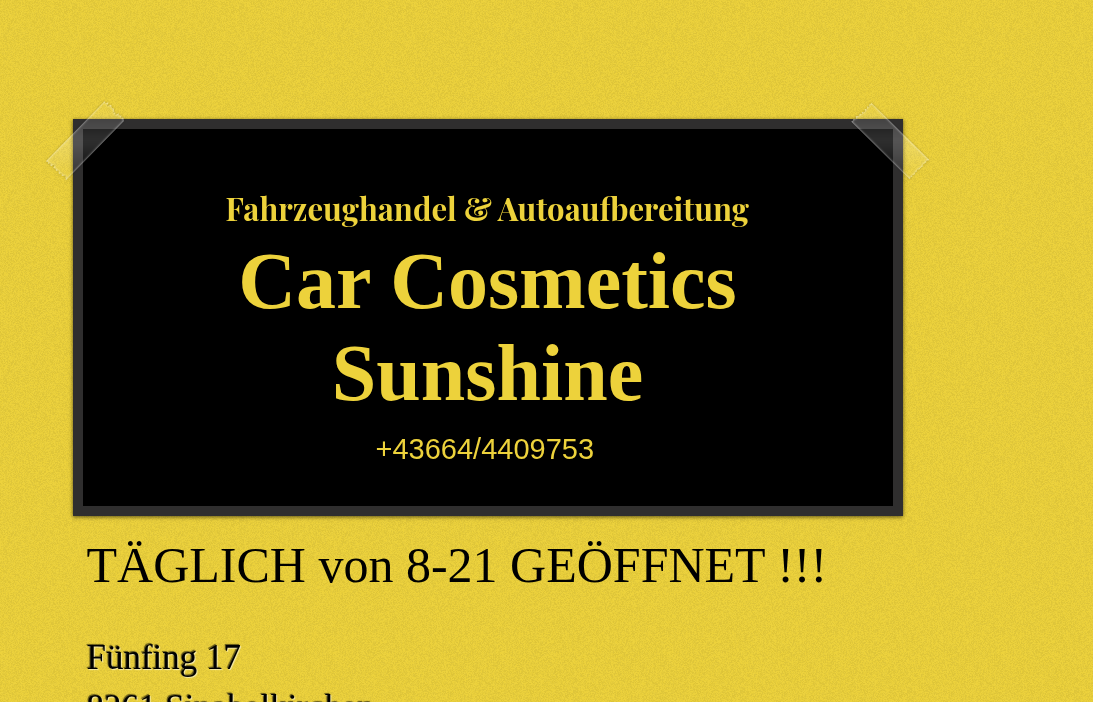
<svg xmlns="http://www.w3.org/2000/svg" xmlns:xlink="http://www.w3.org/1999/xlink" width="1093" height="702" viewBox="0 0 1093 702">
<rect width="100%" height="100%" fill="#ffffff"/>
<image xlink:href="image0.png" x="0" y="0" width="1093" height="702"/>
</svg>
